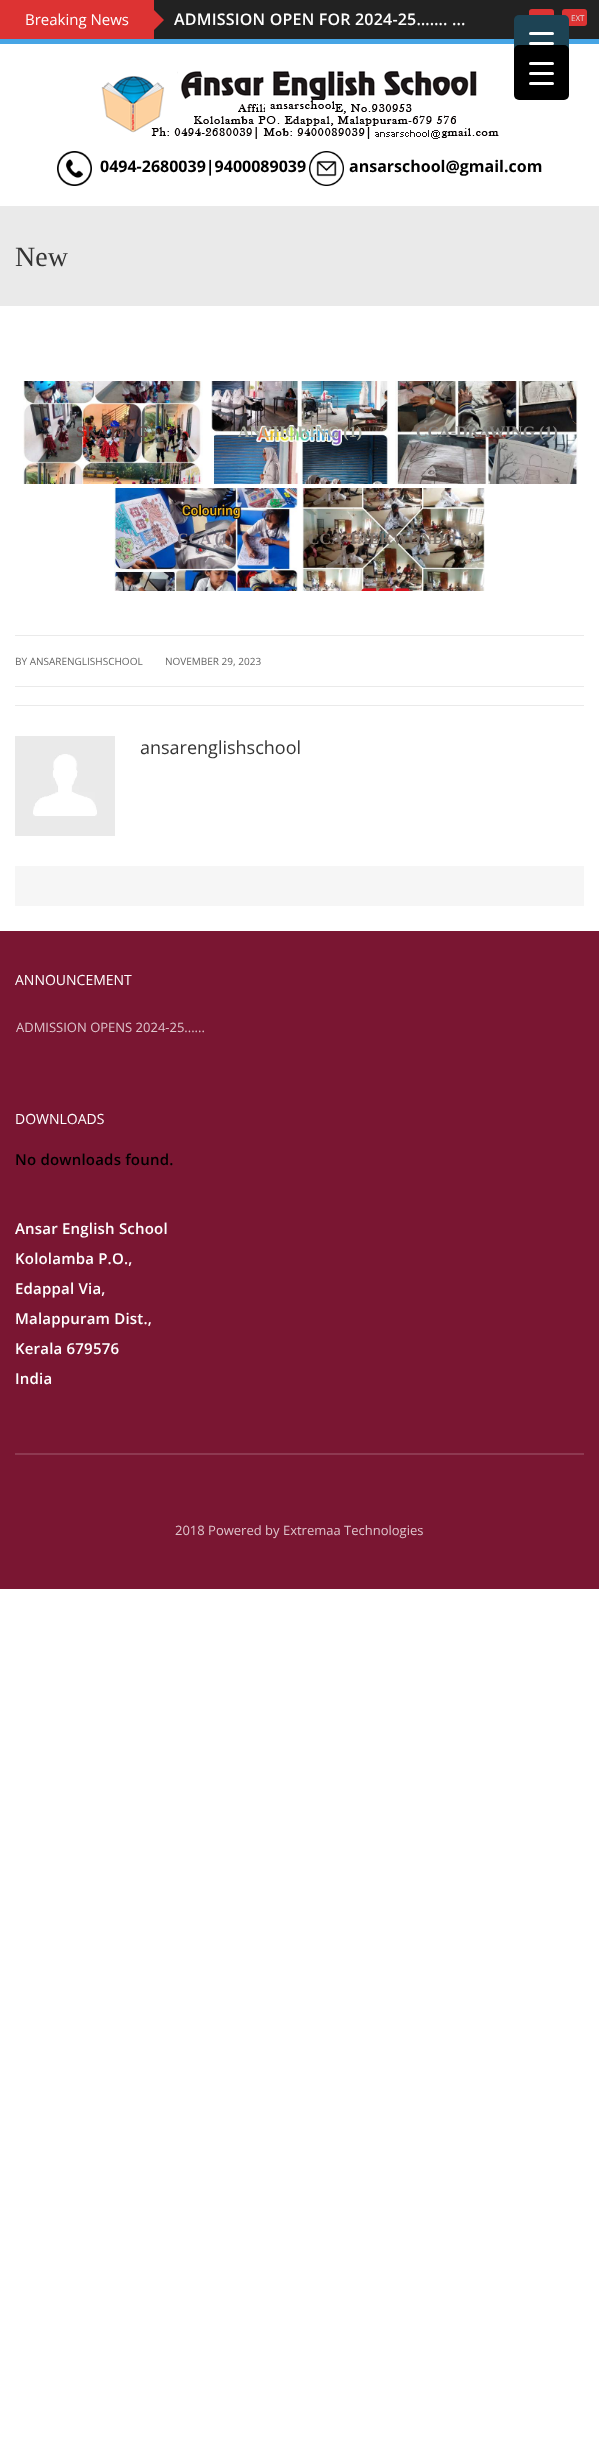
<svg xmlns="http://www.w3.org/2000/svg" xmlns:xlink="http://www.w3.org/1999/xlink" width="599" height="2448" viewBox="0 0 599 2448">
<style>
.cls-1{font:15px Open Sans;fill:#ffffff}
.cls-2{font:600 16px Open Sans;letter-spacing:0.2px;fill:#ffffff}
.cls-3{font:8px Open Sans;fill:#dfdfdf}
.cls-4{font:bold 16px Open Sans;fill:#000000}
.cls-5{font:28px Liberation Serif;fill:#343434}
.cls-6{font:bold 16px Liberation Serif;fill:#684545}
.cls-7{font:bold 16px Liberation Serif;fill:#a8ac9f}
.cls-8{font:bold 16px Liberation Serif;fill:#81807f}
.cls-9{font:bold 16px Liberation Serif;fill:#877e87}
.cls-10{font:bold 16px Liberation Serif;fill:#7c726a}
.cls-11{font:10px Open Sans;fill:#666666}
.cls-12{font:18px Open Sans;fill:#343434}
.cls-13{font:14px Open Sans;fill:#ffffff}
.cls-14{font:13px Open Sans;fill:#dec5cc}
.cls-15{font:600 15px Open Sans;letter-spacing:0.2px;fill:#000000}
.cls-16{font:600 15px Open Sans;letter-spacing:0.2px;fill:#ffffff}
</style>
<rect width="100%" height="100%" fill="#ffffff"/>
<rect fill="#222222" x="154" y="0" width="445" height="39"/>
<rect fill="#dd3333" x="0" y="0" width="154" height="39"/>
<path fill="#dd3333" d="M154 30V10L164 20Z"/>
<rect fill="#dd3333" x="529" y="9" width="25" height="17" rx="3"/>
<rect fill="#dd3333" x="562" y="9" width="25" height="17" rx="3"/>
<rect fill="#46a5e5" x="0" y="39" width="599" height="5"/>
<rect fill="#1d4354" x="514" y="15" width="55" height="55" rx="5"/>
<rect fill="#ffffff" x="529" y="42" width="25" height="3" rx="1.5"/>
<rect fill="#ffffff" x="529" y="32" width="25" height="3" rx="1.5"/>
<rect fill="#000000" x="514" y="45" width="55" height="55" rx="5"/>
<rect fill="#ffffff" x="529" y="72" width="25" height="3" rx="1.5"/>
<rect fill="#ffffff" x="529" y="62" width="25" height="3" rx="1.5"/>
<rect fill="#ffffff" x="529" y="82" width="25" height="3" rx="1.5"/>
<image xlink:href="image0.png" x="101" y="71" width="398" height="68"/>
<image xlink:href="image1.png" x="57" y="151" width="35" height="35"/>
<image xlink:href="image2.png" x="309" y="151" width="35" height="35"/>
<rect fill="#eaeaea" x="0" y="206" width="599" height="100"/>
<image xlink:href="image3.png" x="23" y="381" width="180" height="103"/>
<image xlink:href="image4.png" x="211" y="381" width="179" height="103"/>
<image xlink:href="image5.png" x="395" y="381" width="183" height="103"/>
<image xlink:href="image6.png" x="114" y="488" width="184" height="103"/>
<image xlink:href="image7.png" x="302" y="488" width="183" height="103"/>
<rect fill="#eaeaea" x="15" y="635" width="569" height="1"/>
<rect fill="#eaeaea" x="15" y="686" width="569" height="1"/>
<rect fill="#eaeaea" x="15" y="705" width="569" height="1"/>
<image xlink:href="image8.png" x="15" y="736" width="100" height="100"/>
<rect fill="#f6f6f6" x="15" y="866" width="569" height="40"/>
<rect fill="#7a1632" x="0" y="931" width="599" height="658"/>
<rect fill="#8e3951" x="15" y="1453" width="569" height="2"/>
<text class="cls-1" x="25" y="25">Breaking News</text>
<text class="cls-2" x="174" y="25">ADMISSION OPEN FOR 2024-25……. ...</text>
<text class="cls-3" x="571" y="21">EXT</text>
<text class="cls-4" x="100" y="172">0494-2680039|9400089039</text>
<text class="cls-4" x="349" y="172">ansarschool@gmail.com</text>
<text class="cls-5" x="15" y="266">New</text>
<text class="cls-6" x="76" y="437">SKATING</text>
<text class="cls-7" x="238" y="437">ANCHORING (1)</text>
<text class="cls-8" x="416" y="437">CCA-DRAWING (1)</text>
<text class="cls-9" x="177" y="544">CCA (1)</text>
<text class="cls-10" x="308" y="544">CCA-TAEKWONDO (1)</text>
<text class="cls-11" x="15" y="665">BY ANSARENGLISHSCHOOL</text>
<text class="cls-11" x="165" y="665">NOVEMBER 29, 2023</text>
<text class="cls-12" x="140" y="754">ansarenglishschool</text>
<text class="cls-13" x="15" y="985">ANNOUNCEMENT</text>
<text class="cls-14" x="16" y="1032">ADMISSION OPENS 2024-25......</text>
<text class="cls-13" x="15" y="1124">DOWNLOADS</text>
<text class="cls-15" x="15" y="1165">No downloads found.</text>
<text class="cls-16" x="15" y="1234">Ansar English School</text>
<text class="cls-16" x="15" y="1264">Kololamba P.O.,</text>
<text class="cls-16" x="15" y="1294">Edappal Via,</text>
<text class="cls-16" x="15" y="1324">Malappuram Dist.,</text>
<text class="cls-16" x="15" y="1354">Kerala 679576</text>
<text class="cls-16" x="15" y="1384">India</text>
<text class="cls-14" x="175" y="1535">2018 Powered by Extremaa Technologies</text>
</svg>
